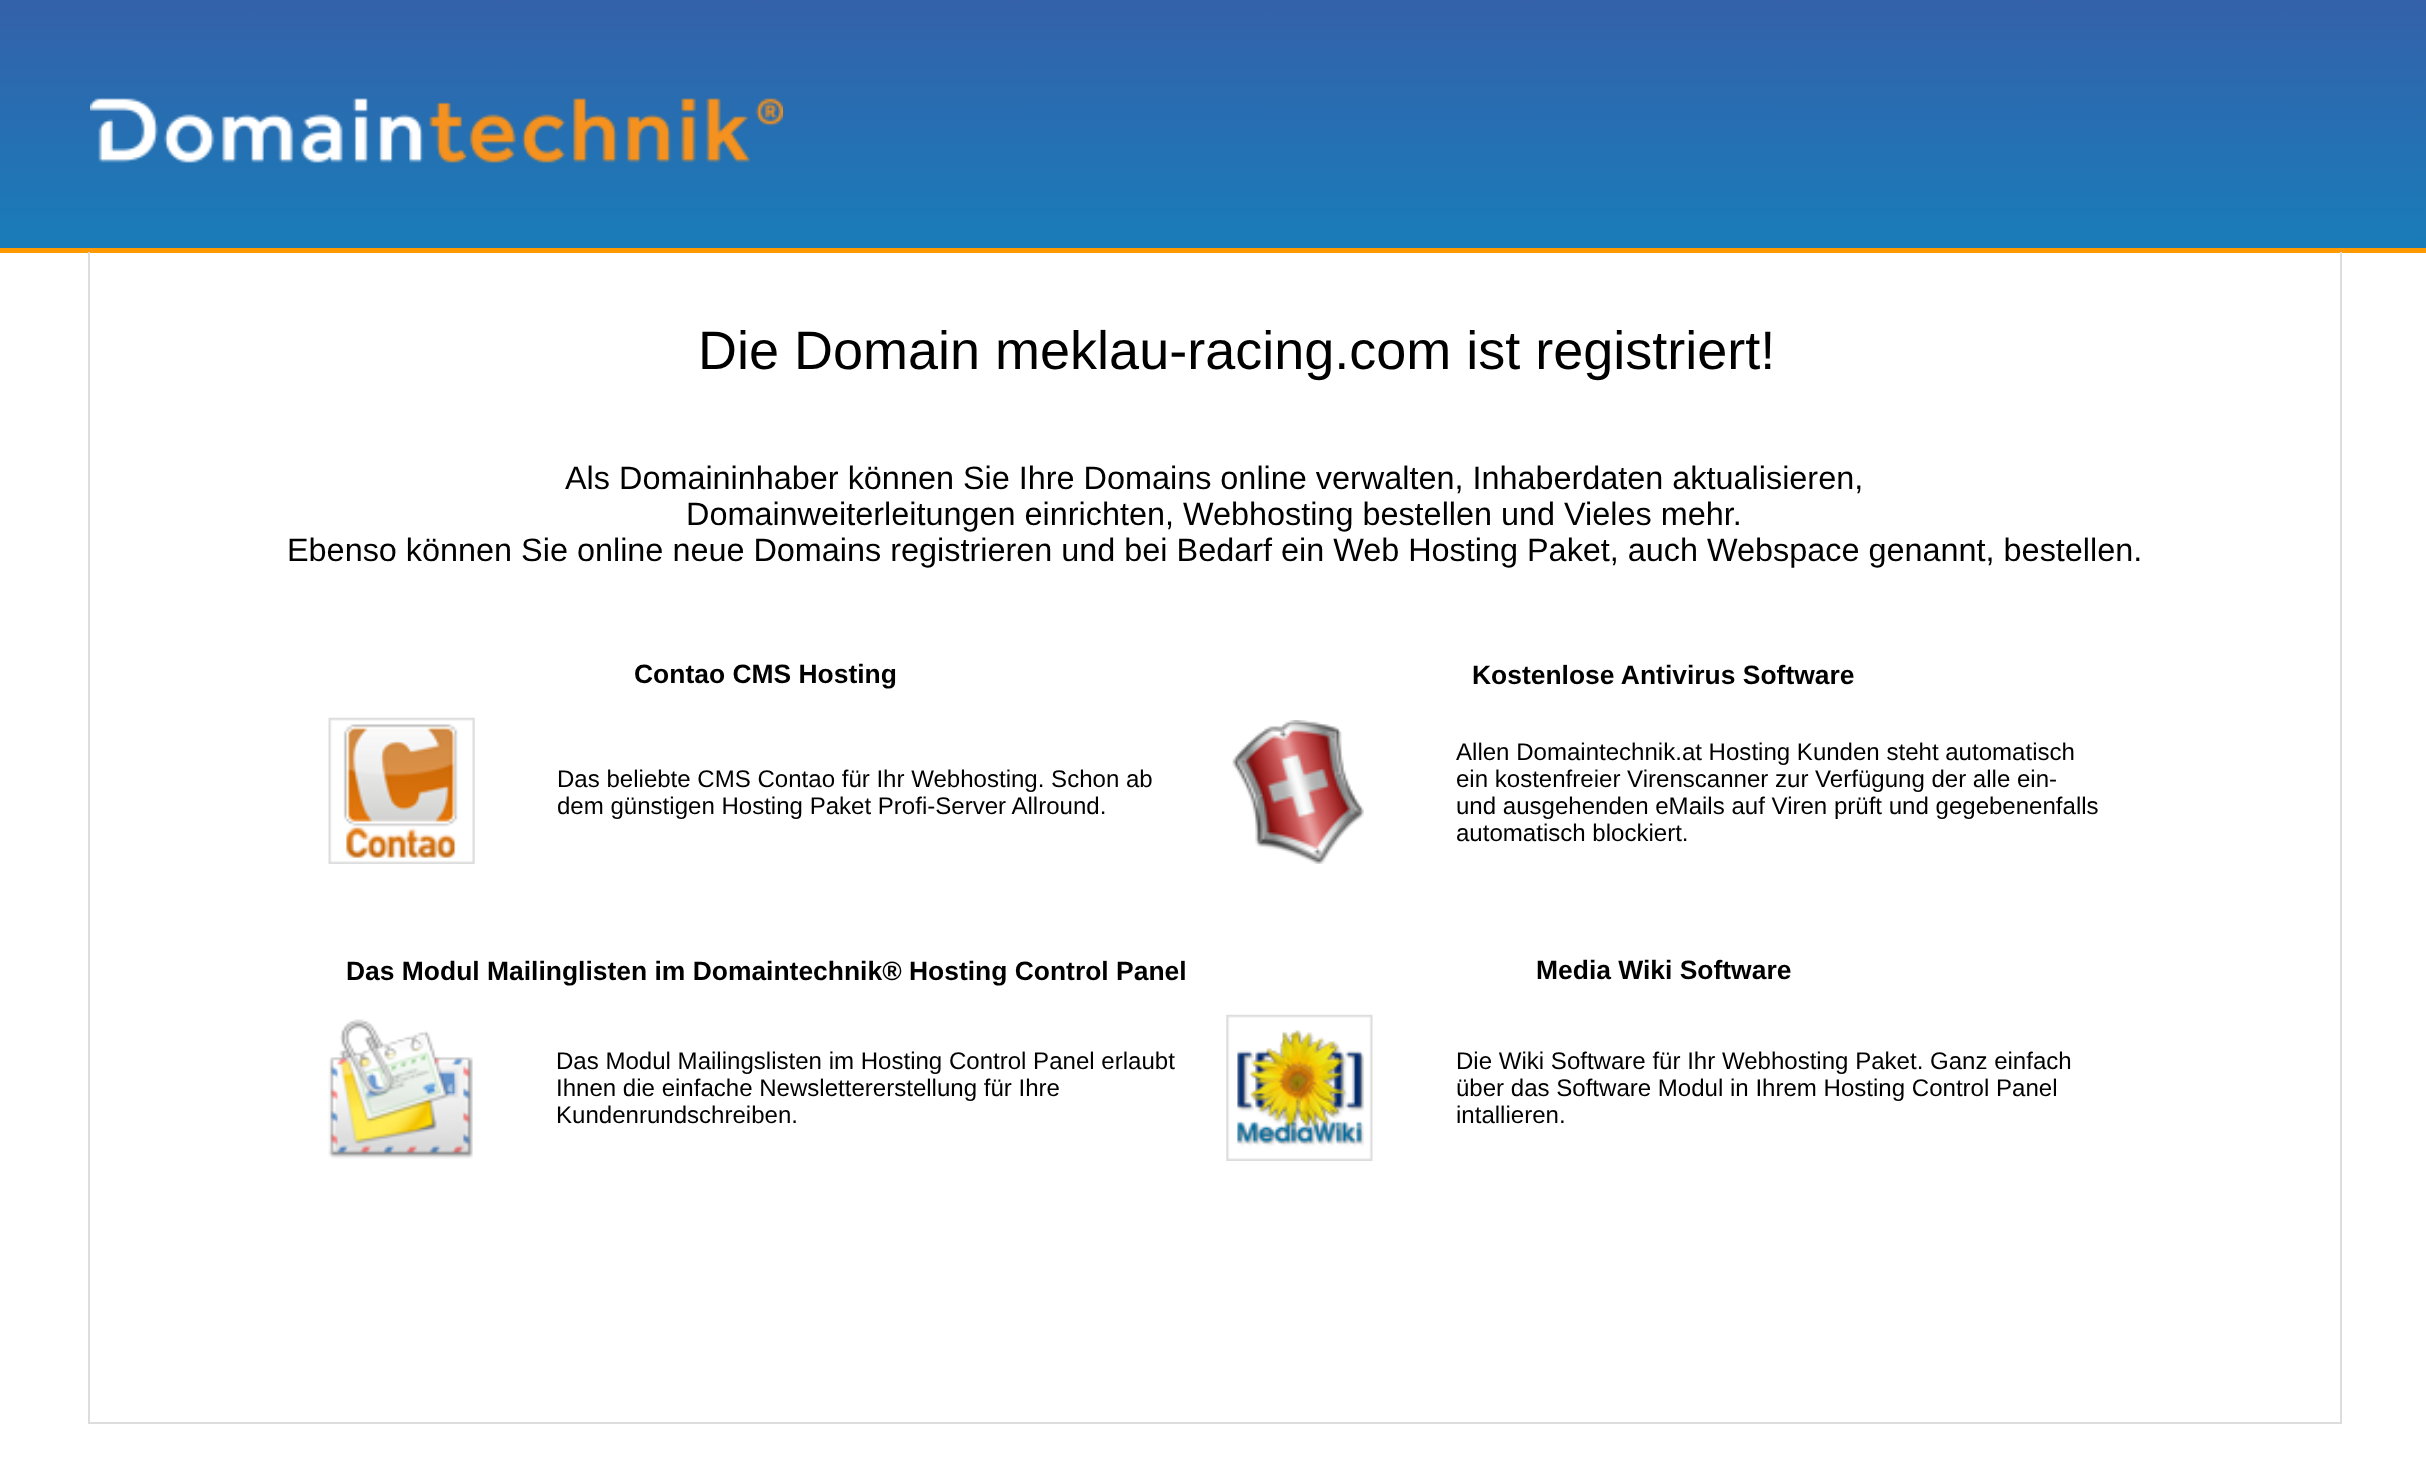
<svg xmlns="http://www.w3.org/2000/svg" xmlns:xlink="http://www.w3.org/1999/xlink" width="2426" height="1458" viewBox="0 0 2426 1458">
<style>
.cls-1{font:54px Liberation Sans;fill:#000000}
.cls-2{font:32.4px Liberation Sans;fill:#000000}
.cls-3{font:bold 26.45px Liberation Sans;fill:#000000}
.cls-4{font:24.05px Liberation Sans;fill:#000000}
</style>
<defs>
<linearGradient id="g1" gradientUnits="userSpaceOnUse" x1="1214" y1="0" x2="1214" y2="248"><stop offset="0" stop-color="#3461aa"/><stop offset="1" stop-color="#197cb9"/></linearGradient>
</defs>
<rect width="100%" height="100%" fill="#ffffff"/>
<rect fill="url(#g1)" x="0" y="0" width="2426" height="248"/>
<rect fill="#ff9900" x="0" y="248" width="2426" height="5"/>
<image xlink:href="image0.png" x="90" y="98" width="693" height="65"/>
<rect fill="#dddddd" x="2340" y="252" width="2" height="1172"/>
<rect fill="#dddddd" x="88" y="1422" width="2254" height="2"/>
<rect fill="#dddddd" x="88" y="252" width="2" height="1172"/>
<image xlink:href="image1.png" x="328" y="717" width="147" height="147"/>
<image xlink:href="image2.png" x="1232" y="720" width="132" height="144"/>
<image xlink:href="image3.png" x="328" y="1019" width="145" height="140"/>
<image xlink:href="image4.png" x="1226" y="1014" width="147" height="147"/>
<text class="cls-1" x="698" y="369">Die Domain meklau-racing.com ist registriert!</text>
<text class="cls-2" x="565" y="489">Als Domaininhaber können Sie Ihre Domains online verwalten, Inhaberdaten aktualisieren,</text>
<text class="cls-2" x="686" y="525">Domainweiterleitungen einrichten, Webhosting bestellen und Vieles mehr.</text>
<text class="cls-2" x="287" y="561">Ebenso können Sie online neue Domains registrieren und bei Bedarf ein Web Hosting Paket, auch Webspace genannt, bestellen.</text>
<text class="cls-3" x="634" y="683">Contao CMS Hosting</text>
<text class="cls-4"><tspan x="557" y="787">Das beliebte CMS Contao für Ihr Webhosting. Schon ab</tspan><tspan x="557" y="814">dem günstigen Hosting Paket Profi-Server Allround.</tspan></text>
<text class="cls-3" x="1472" y="684">Kostenlose Antivirus Software</text>
<text class="cls-4"><tspan x="1456" y="760">Allen Domaintechnik.at Hosting Kunden steht automatisch</tspan><tspan x="1456" y="787">ein kostenfreier Virenscanner zur Verfügung der alle ein-</tspan><tspan x="1456" y="814">und ausgehenden eMails auf Viren prüft und gegebenenfalls</tspan><tspan x="1456" y="841">automatisch blockiert.</tspan></text>
<text class="cls-3" x="346" y="980">Das Modul Mailinglisten im Domaintechnik® Hosting Control Panel</text>
<text class="cls-4"><tspan x="556" y="1069">Das Modul Mailingslisten im Hosting Control Panel erlaubt</tspan><tspan x="556" y="1096">Ihnen die einfache Newslettererstellung für Ihre</tspan><tspan x="556" y="1123">Kundenrundschreiben.</tspan></text>
<text class="cls-3" x="1536" y="979">Media Wiki Software</text>
<text class="cls-4"><tspan x="1456" y="1069">Die Wiki Software für Ihr Webhosting Paket. Ganz einfach</tspan><tspan x="1456" y="1096">über das Software Modul in Ihrem Hosting Control Panel</tspan><tspan x="1456" y="1123">intallieren.</tspan></text>
</svg>
